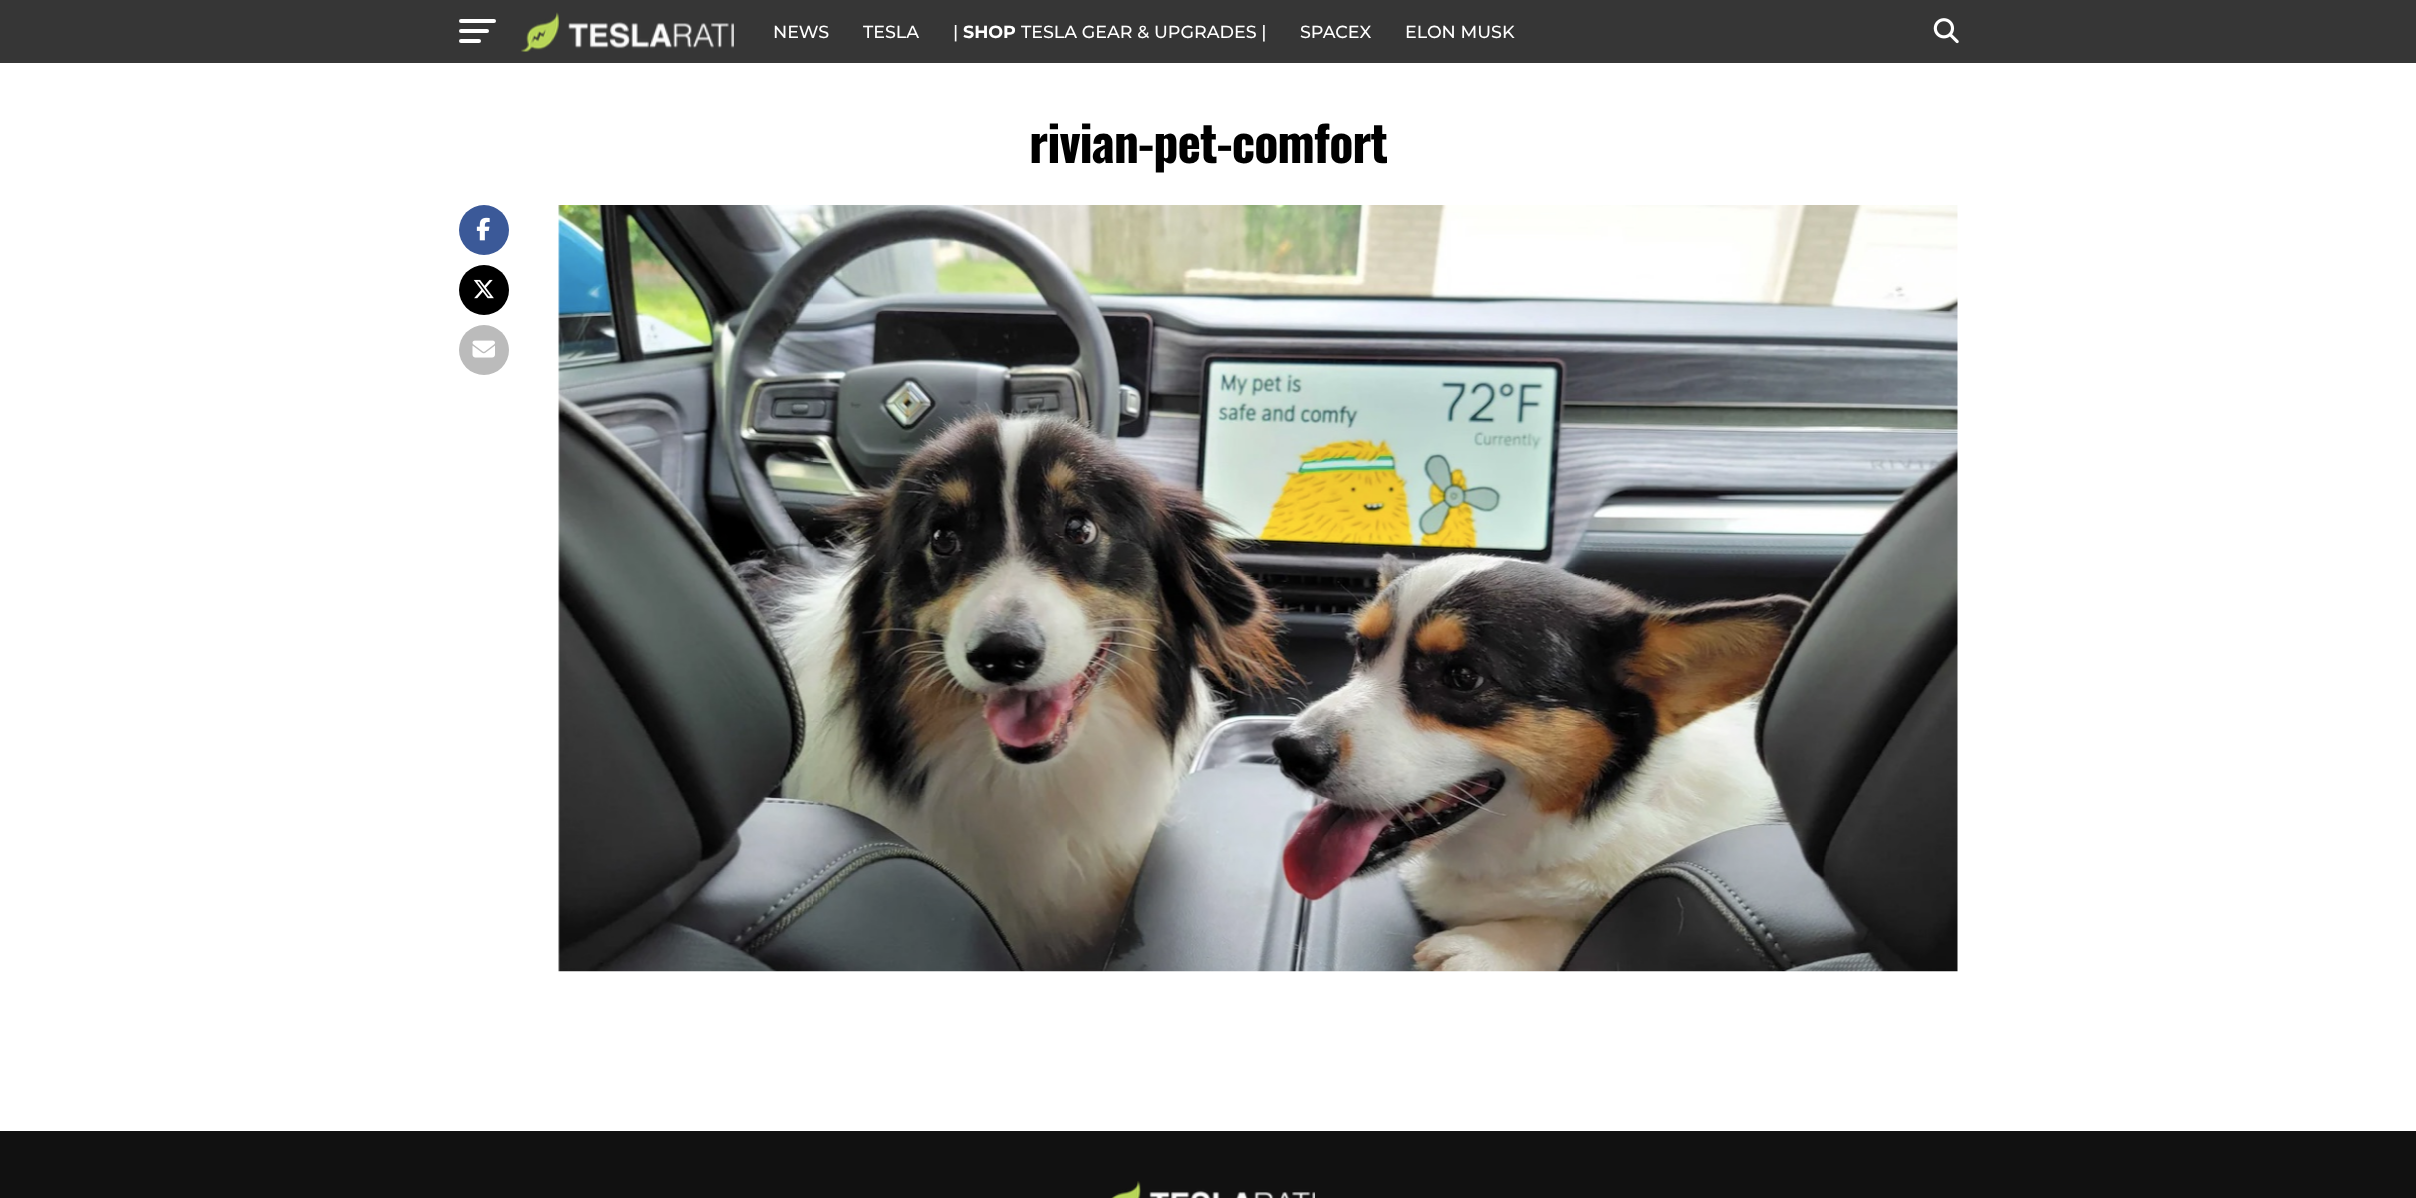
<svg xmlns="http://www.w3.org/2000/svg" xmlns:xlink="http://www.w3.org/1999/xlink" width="2416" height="1198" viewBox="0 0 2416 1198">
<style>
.cls-1{font:500 17.5px Montserrat;fill:#ffffff}
.cls-2{font:bold 17.5px Montserrat;fill:#ffffff}
.cls-3{font:bold 50px Oswald;letter-spacing:-1px;fill:#000000}
</style>
<rect width="100%" height="100%" fill="#ffffff"/>
<rect fill="#363636" x="0" y="0" width="2416" height="63"/>
<rect fill="#ffffff" x="459" y="19" width="37" height="4" rx="2"/>
<rect fill="#ffffff" x="459" y="29" width="30" height="4" rx="2"/>
<rect fill="#ffffff" x="459" y="39" width="22" height="4" rx="2"/>
<image xlink:href="image0.png" x="521" y="12" width="213" height="40"/>
<image xlink:href="image1.png" x="1933" y="18" width="26" height="26"/>
<circle fill="#3b5998" cx="484" cy="230" r="25"/>
<image xlink:href="image2.png" x="476" y="217" width="14" height="24"/>
<circle fill="#000000" cx="484" cy="290" r="25"/>
<image xlink:href="image3.png" x="473" y="279" width="21" height="20"/>
<circle fill="#bbbbbb" cx="484" cy="350" r="25"/>
<image xlink:href="image4.png" x="472" y="340" width="23" height="18"/>
<image xlink:href="image5.png" x="558" y="205" width="1400" height="767"/>
<rect fill="#111111" x="0" y="1131" width="2416" height="67"/>
<image xlink:href="image6.png" x="1111" y="1181" width="204" height="17"/>
<text class="cls-1" x="773" y="38">NEWS</text>
<text class="cls-1" x="863" y="38">TESLA</text>
<text class="cls-1" x="953" y="38">|</text>
<text class="cls-2" x="963" y="38">SHOP</text>
<text class="cls-1" x="1021" y="38">TESLA GEAR &amp; UPGRADES |</text>
<text class="cls-1" x="1300" y="38">SPACEX</text>
<text class="cls-1" x="1405" y="38">ELON MUSK</text>
<text class="cls-3" x="1029" y="163">rivian-pet-comfort</text>
</svg>
